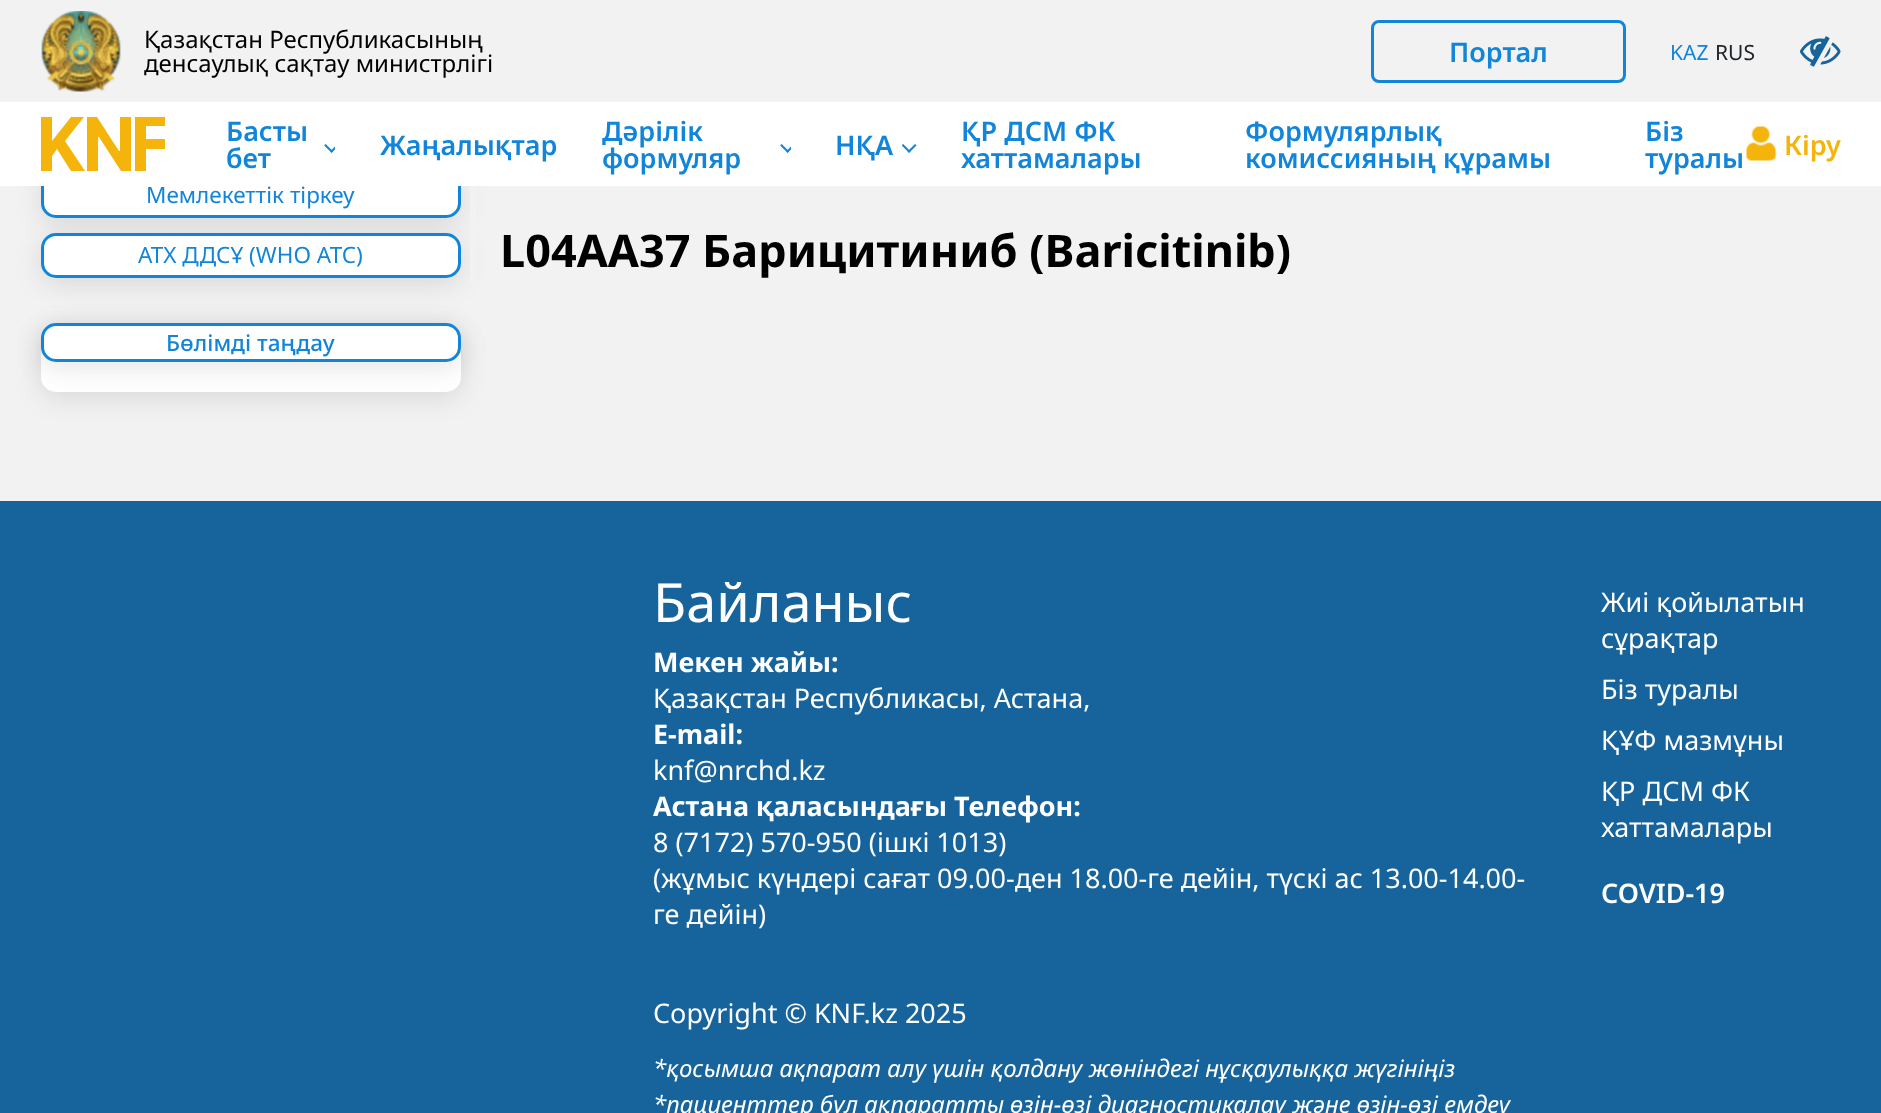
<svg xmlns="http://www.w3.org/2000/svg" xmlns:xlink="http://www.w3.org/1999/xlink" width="1881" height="1113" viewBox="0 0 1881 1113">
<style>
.cls-1{font:24px Noto Sans;fill:#000000}
.cls-2{font:600 27px Noto Sans;fill:#1185da}
.cls-3{font:21px Noto Sans;fill:#1185da}
.cls-4{font:21px Noto Sans;fill:#212529}
.cls-5{font:600 27px Noto Sans;fill:#f5b40c}
.cls-6{font:22.5px Noto Sans;fill:#1185da}
.cls-7{font:500 22.5px Noto Sans;fill:#1185da}
.cls-8{font:bold 45px Noto Sans;fill:#000000}
.cls-9{font:54px Noto Sans;fill:#ffffff}
.cls-10{font:bold 27px Noto Sans;fill:#ffffff}
.cls-11{font:27px Noto Sans;fill:#ffffff}
.cls-12{font:italic 24px Noto Sans;fill:#ffffff}
.cls-13{font:600 27px Noto Sans;fill:#ffffff}
</style>
<defs>
<clipPath id="clip1"><rect x="41" y="117" width="124" height="54"/></clipPath>
</defs>
<rect width="100%" height="100%" fill="#f2f2f2"/>
<image xlink:href="image0.png" x="41" y="11" width="80" height="81"/>
<rect fill="none" stroke="#1185da" stroke-width="3" x="1372.5" y="21.5" width="252" height="60" rx="6.5"/>
<image xlink:href="image1.png" x="1800" y="36" width="41" height="31"/>
<rect fill="#000000" fill-opacity="0.1" filter="blur(13.5px)" x="41" y="177" width="420" height="47" rx="15"/>
<rect fill="#ffffff" stroke="#1185da" stroke-width="3" x="42.5" y="172.5" width="417" height="44" rx="13.5"/>
<rect fill="#ffffff" x="0" y="102" width="1881" height="84"/>
<g clip-path="url(#clip1)">
<path fill="#f5b40c" d="M65 141L84 117H71L52 141V117H40V171H52V156L57 149L71 171H85Z"/>
</g>
<path fill="#f5b40c" d="M131 117V171H121L99 137H98V171H87V117H97L119 151H120V117Z"/>
<g clip-path="url(#clip1)">
<path fill="#f5b40c" d="M170 126V117H135V171H146V149H165V139H146V126Z"/>
</g>
<image xlink:href="image2.png" x="324" y="144" width="11" height="9"/>
<image xlink:href="image2.png" x="780" y="144" width="11" height="9"/>
<image xlink:href="image3.png" x="902" y="144" width="15" height="9"/>
<image xlink:href="image4.png" x="1746" y="126" width="31" height="35"/>
<rect fill="#000000" fill-opacity="0.1" filter="blur(13.5px)" x="41" y="239" width="420" height="45" rx="15"/>
<rect fill="#ffffff" stroke="#1185da" stroke-width="3" x="42.5" y="234.5" width="417" height="42" rx="13.5"/>
<rect fill="#000000" fill-opacity="0.1" filter="blur(13.5px)" x="41" y="329" width="420" height="69" rx="15"/>
<rect fill="#ffffff" x="41" y="323" width="420" height="69" rx="15"/>
<rect fill="#000000" fill-opacity="0.1" filter="blur(13.5px)" x="41" y="329" width="420" height="39" rx="15"/>
<rect fill="#ffffff" stroke="#1185da" stroke-width="3" x="42.5" y="324.5" width="417" height="36" rx="13.5"/>
<rect fill="#f2f2f2" x="470" y="186" width="6" height="96"/>
<rect fill="#17639b" x="0" y="501" width="1881" height="612"/>
<text class="cls-1"><tspan x="144" y="48">Қазақстан Республикасының</tspan><tspan x="144" y="72">денсаулық сақтау министрлігі</tspan></text>
<text class="cls-2" x="1449" y="62">Портал</text>
<text class="cls-3" x="1670" y="60">KAZ</text>
<text class="cls-4" x="1715" y="60">RUS</text>
<text class="cls-2"><tspan x="226" y="141">Басты</tspan><tspan x="226" y="168">бет</tspan></text>
<text class="cls-2" x="380" y="155">Жаңалықтар</text>
<text class="cls-2"><tspan x="602" y="141">Дәрілік</tspan><tspan x="602" y="168">формуляр</tspan></text>
<text class="cls-2" x="835" y="155">НҚА</text>
<text class="cls-2"><tspan x="961" y="141">ҚР ДСМ ФК</tspan><tspan x="961" y="168">хаттамалары</tspan></text>
<text class="cls-2"><tspan x="1245" y="141">Формулярлық</tspan><tspan x="1245" y="168">комиссияның құрамы</tspan></text>
<text class="cls-2"><tspan x="1645" y="141">Біз</tspan><tspan x="1645" y="168">туралы</tspan></text>
<text class="cls-5" x="1784" y="155">Кіру</text>
<text class="cls-6" x="146" y="203">Мемлекеттік тіркеу</text>
<text class="cls-6" x="138" y="263">АТХ ДДСҰ (WHO ATC)</text>
<text class="cls-7" x="166" y="351">Бөлімді таңдау</text>
<text class="cls-8" x="500" y="267">L04AA37 Барицитиниб (Baricitinib)</text>
<text class="cls-9" x="653" y="622">Байланыс</text>
<text class="cls-10" x="653" y="672">Мекен жайы:</text>
<text class="cls-11" x="653" y="708">Қазақстан Республикасы, Астана,</text>
<text class="cls-10" x="653" y="744">E-mail:</text>
<text class="cls-11" x="653" y="780">knf@nrchd.kz</text>
<text class="cls-10" x="653" y="816">Астана қаласындағы Телефон:</text>
<text class="cls-11"><tspan x="653" y="852">8 (7172) 570-950 (ішкі 1013)</tspan><tspan x="653" y="888">(жұмыс күндері сағат 09.00-ден 18.00-ге дейін, түскі ас 13.00-14.00-</tspan><tspan x="653" y="924">ге дейін)</tspan></text>
<text class="cls-11" x="653" y="1023">Copyright © KNF.kz 2025</text>
<text class="cls-12"><tspan x="653" y="1077">*қосымша ақпарат алу үшін қолдану жөніндегі нұсқаулыққа жүгініңіз</tspan><tspan x="653" y="1113">*пациенттер бұл ақпаратты өзін-өзі диагностикалау және өзін-өзі емдеу</tspan></text>
<text class="cls-11"><tspan x="1601" y="612">Жиі қойылатын</tspan><tspan x="1601" y="648">сұрақтар</tspan><tspan x="1601" y="699">Біз туралы</tspan><tspan x="1601" y="750">ҚҰФ мазмұны</tspan><tspan x="1601" y="801">ҚР ДСМ ФК</tspan><tspan x="1601" y="837">хаттамалары</tspan></text>
<text class="cls-13" x="1601" y="903">COVID-19</text>
</svg>
